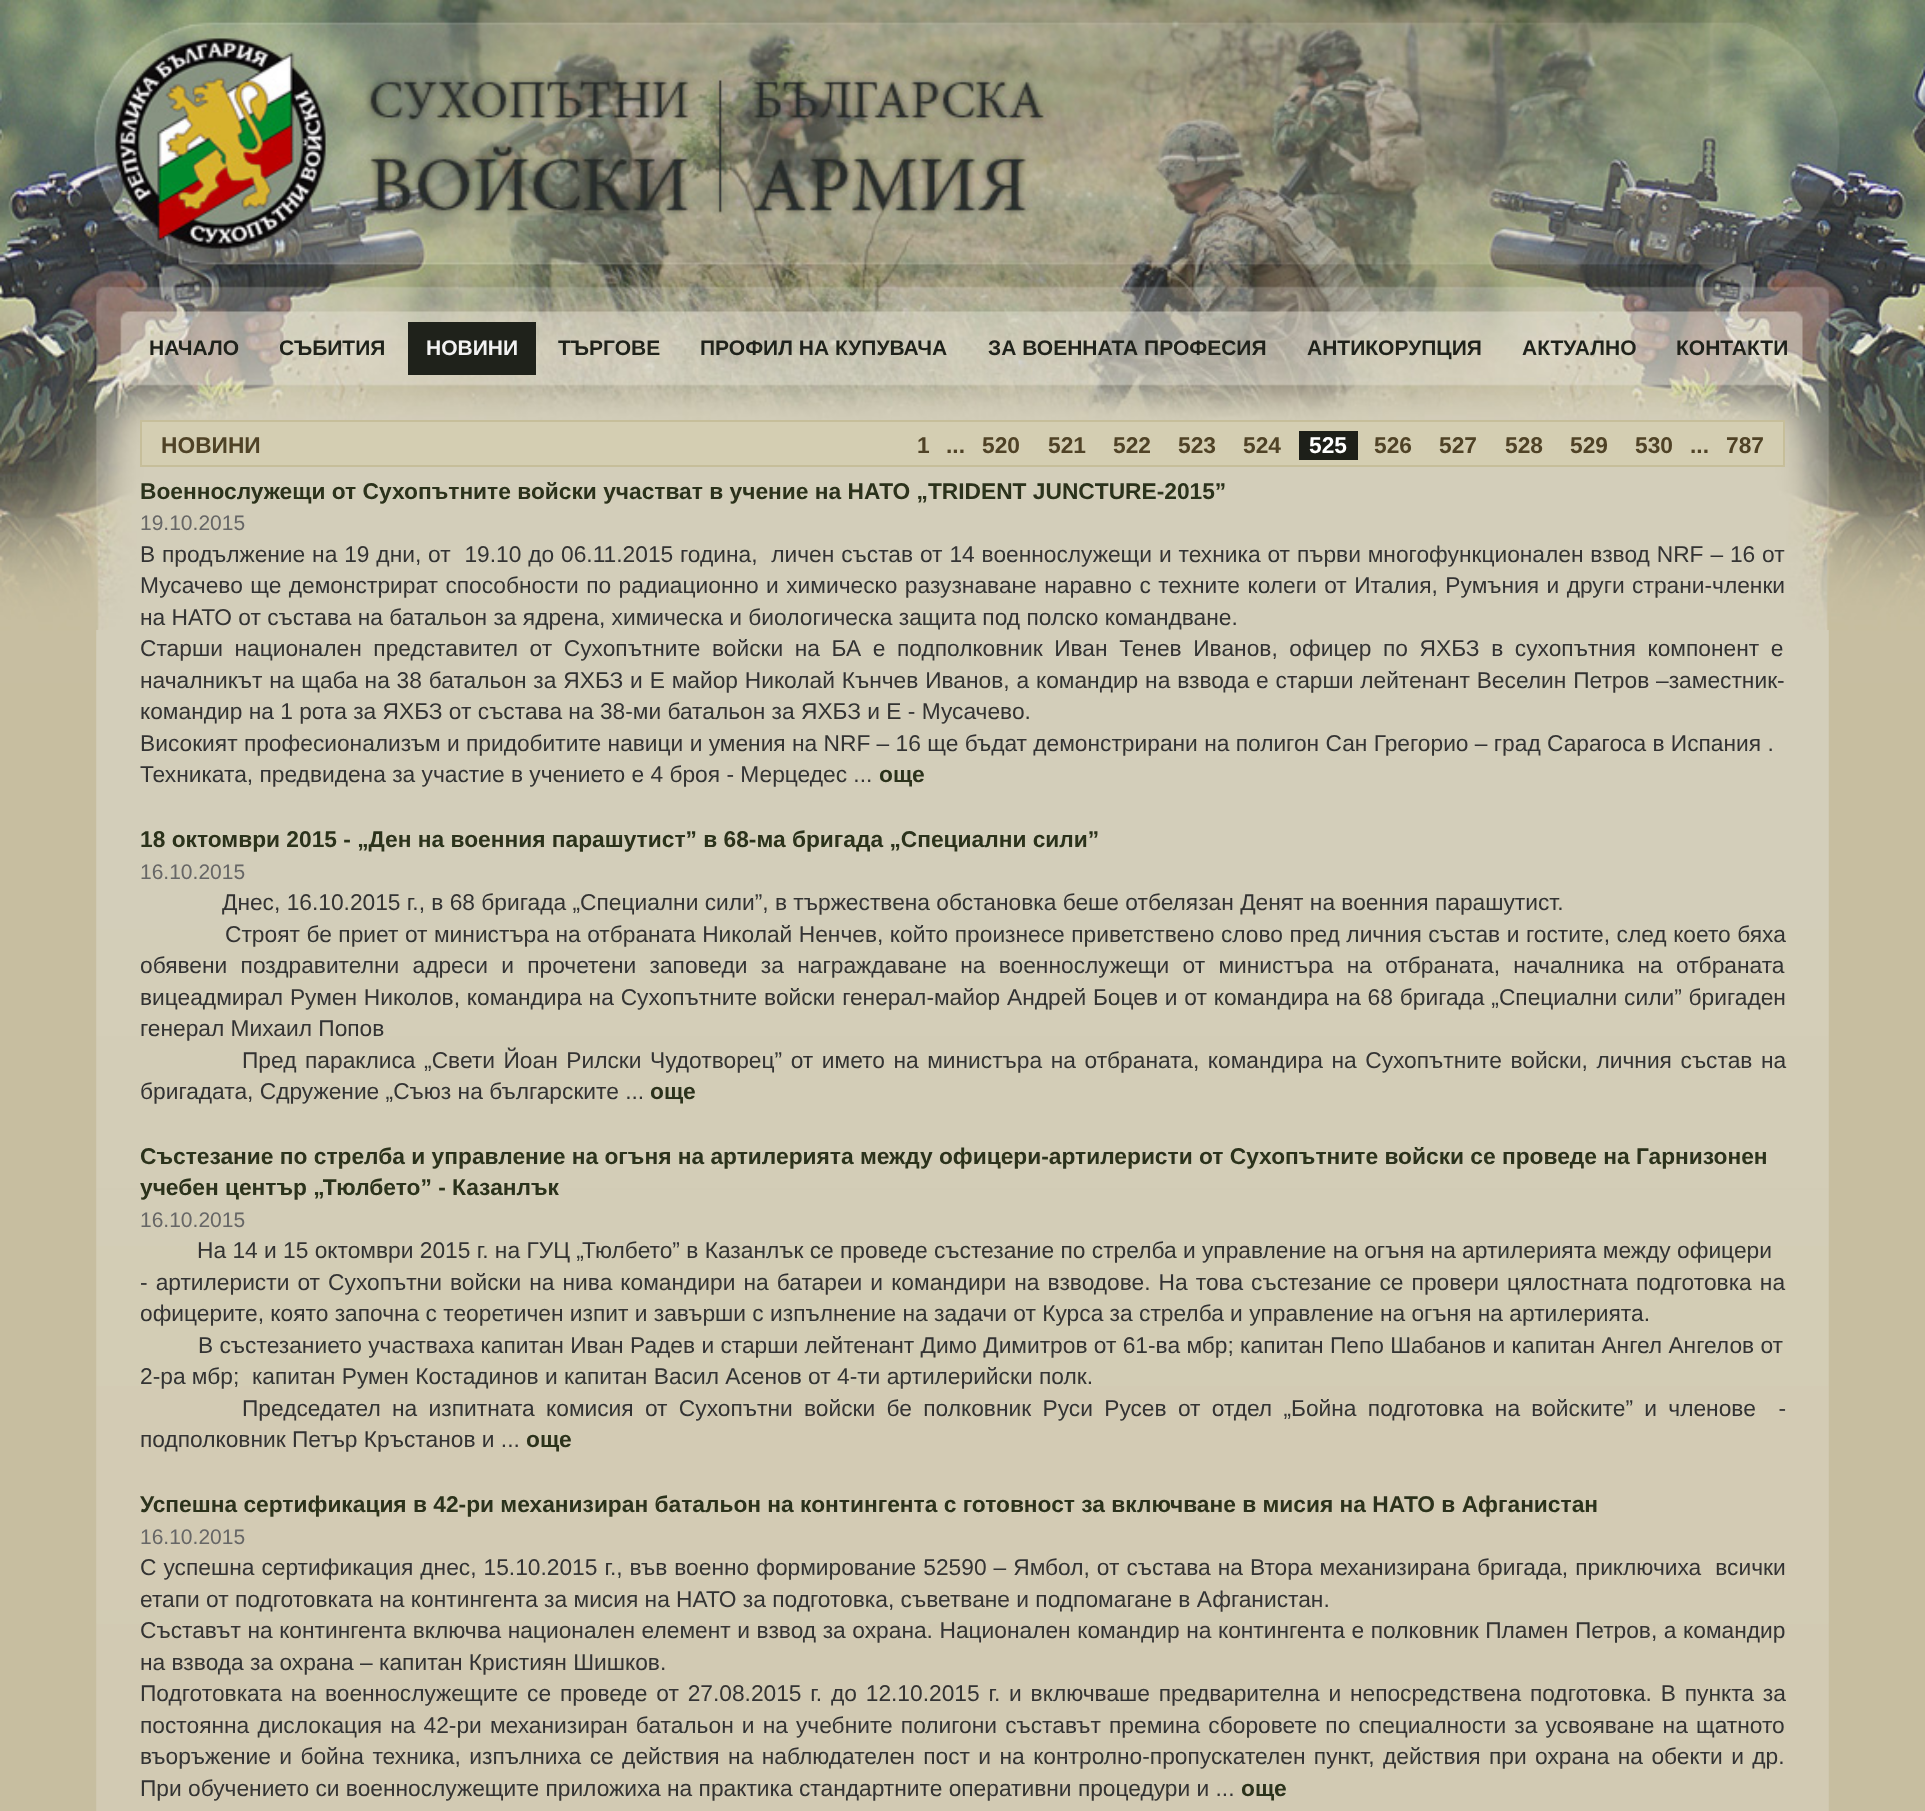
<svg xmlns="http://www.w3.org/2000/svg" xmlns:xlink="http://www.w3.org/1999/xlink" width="1925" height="1811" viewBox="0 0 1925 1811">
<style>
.cls-1{font:bold 21px Liberation Sans;fill:#1f221b}
.cls-2{font:bold 21px Liberation Sans;fill:#f2f2f2}
.cls-3{font:bold 22.75px Liberation Sans;fill:#4f4226}
.cls-4{font:bold 22.75px Liberation Sans;fill:#ffffff}
.cls-5{font:bold 22.75px Liberation Sans;fill:#2b321b}
.cls-6{font:21px Liberation Sans;fill:#666666}
.cls-7{font:22.75px Liberation Sans;fill:#333333}
</style>
<rect width="100%" height="100%" fill="#c7bea0"/>
<image xlink:href="image0.png" x="0" y="0" width="1925" height="683"/>
<rect fill="#1f221b" x="408" y="322" width="128" height="53"/>
<image xlink:href="image1.png" x="96" y="630" width="1733" height="1181"/>
<rect fill="#d4ceb2" stroke="#c6be9a" stroke-width="2" x="141" y="421" width="1643" height="45"/>
<rect fill="#1d1f19" x="1299" y="431" width="59" height="29"/>
<text class="cls-1" x="149" y="355">НАЧАЛО</text>
<text class="cls-1" x="279" y="355">СЪБИТИЯ</text>
<text class="cls-2" x="426" y="355">НОВИНИ</text>
<text class="cls-1" x="558" y="355">ТЪРГОВЕ</text>
<text class="cls-1" x="700" y="355">ПРОФИЛ НА КУПУВАЧА</text>
<text class="cls-1" x="988" y="355">ЗА ВОЕННАТА ПРОФЕСИЯ</text>
<text class="cls-1" x="1307" y="355">АНТИКОРУПЦИЯ</text>
<text class="cls-1" x="1522" y="355">АКТУАЛНО</text>
<text class="cls-1" x="1676" y="355">КОНТАКТИ</text>
<text class="cls-3" x="161" y="453">НОВИНИ</text>
<text class="cls-3" x="917" y="453">1</text>
<text class="cls-3" x="946" y="453">...</text>
<text class="cls-3" x="982" y="453">520</text>
<text class="cls-3" x="1048" y="453">521</text>
<text class="cls-3" x="1113" y="453">522</text>
<text class="cls-3" x="1178" y="453">523</text>
<text class="cls-3" x="1243" y="453">524</text>
<text class="cls-4" x="1309" y="453">525</text>
<text class="cls-3" x="1374" y="453">526</text>
<text class="cls-3" x="1439" y="453">527</text>
<text class="cls-3" x="1505" y="453">528</text>
<text class="cls-3" x="1570" y="453">529</text>
<text class="cls-3" x="1635" y="453">530</text>
<text class="cls-3" x="1690" y="453">...</text>
<text class="cls-3" x="1726" y="453">787</text>
<text class="cls-5" x="140" y="499">Военнослужещи от Сухопътните войски участват в учение на НАТО „TRIDENT JUNCTURE-2015”</text>
<text class="cls-6" x="140" y="530">19.10.2015</text>
<text class="cls-7" xml:space="preserve"><tspan x="140" y="562" word-spacing="0.55">В продължение на 19 дни, от  19.10 до 06.11.2015 година,  личен състав от 14 военнослужещи и техника от първи многофункционален взвод NRF – 16 от</tspan><tspan x="140" y="593" word-spacing="1.1">Мусачево ще демонстрират способности по радиационно и химическо разузнаване наравно с техните колеги от Италия, Румъния и други страни-членки</tspan><tspan x="140" y="625">на НАТО от състава на батальон за ядрена, химическа и биологическа защита под полско командване.</tspan><tspan x="140" y="656" word-spacing="5.25">Старши национален представител от Сухопътните войски на БА е подполковник Иван Тенев Иванов, офицер по ЯХБЗ в сухопътния компонент е</tspan><tspan x="140" y="688" word-spacing="0.5">началникът на щаба на 38 батальон за ЯХБЗ и Е майор Николай Кънчев Иванов, а командир на взвода е старши лейтенант Веселин Петров –заместник-</tspan><tspan x="140" y="719">командир на 1 рота за ЯХБЗ от състава на 38-ми батальон за ЯХБЗ и Е - Мусачево.</tspan><tspan x="140" y="751">Високият професионализъм и придобитите навици и умения на NRF – 16 ще бъдат демонстрирани на полигон Сан Грегорио – град Сарагоса в Испания .</tspan><tspan x="140" y="782">Техниката, предвидена за участие в учението е 4 броя - Мерцедес ...</tspan></text>
<text class="cls-5" x="879" y="782">още</text>
<text class="cls-5" x="140" y="847">18 октомври 2015 - „Ден на военния парашутист” в 68-ма бригада „Специални сили”</text>
<text class="cls-6" x="140" y="879">16.10.2015</text>
<text class="cls-7" x="222" y="910">Днес, 16.10.2015 г., в 68 бригада „Специални сили”, в тържествена обстановка беше отбелязан Денят на военния парашутист.</text>
<text class="cls-7" x="225" y="942" word-spacing="0.2">Строят бе приет от министъра на отбраната Николай Ненчев, който произнесе приветствено слово пред личния състав и гостите, след което бяха</text>
<text class="cls-7"><tspan x="140" y="973" word-spacing="7">обявени поздравителни адреси и прочетени заповеди за награждаване на военнослужещи от министъра на отбраната, началника на отбраната</tspan><tspan x="140" y="1005" word-spacing="0.5">вицеадмирал Румен Николов, командира на Сухопътните войски генерал-майор Андрей Боцев и от командира на 68 бригада „Специални сили” бригаден</tspan><tspan x="140" y="1036">генерал Михаил Попов</tspan></text>
<text class="cls-7" x="242" y="1068" word-spacing="2.25">Пред параклиса „Свети Йоан Рилски Чудотворец” от името на министъра на отбраната, командира на Сухопътните войски, личния състав на</text>
<text class="cls-7" x="140" y="1099">бригадата, Сдружение „Съюз на българските ...</text>
<text class="cls-5" x="650" y="1099">още</text>
<text class="cls-5"><tspan x="140" y="1164">Състезание по стрелба и управление на огъня на артилерията между офицери-артилеристи от Сухопътните войски се проведе на Гарнизонен</tspan><tspan x="140" y="1195">учебен център „Тюлбето” - Казанлък</tspan></text>
<text class="cls-6" x="140" y="1227">16.10.2015</text>
<text class="cls-7" x="197" y="1258">На 14 и 15 октомври 2015 г. на ГУЦ „Тюлбето” в Казанлък се проведе състезание по стрелба и управление на огъня на артилерията между офицери</text>
<text class="cls-7"><tspan x="140" y="1290" word-spacing="1.75">- артилеристи от Сухопътни войски на нива командири на батареи и командири на взводове. На това състезание се провери цялостната подготовка на</tspan><tspan x="140" y="1321">офицерите, която започна с теоретичен изпит и завърши с изпълнение на задачи от Курса за стрелба и управление на огъня на артилерията.</tspan></text>
<text class="cls-7" x="198" y="1353">В състезанието участваха капитан Иван Радев и старши лейтенант Димо Димитров от 61-ва мбр; капитан Пепо Шабанов и капитан Ангел Ангелов от</text>
<text class="cls-7" xml:space="preserve" x="140" y="1384">2-ра мбр;  капитан Румен Костадинов и капитан Васил Асенов от 4-ти артилерийски полк.</text>
<text class="cls-7" xml:space="preserve" x="242" y="1416" word-spacing="5">Председател на изпитната комисия от Сухопътни войски бе полковник Руси Русев от отдел „Бойна подготовка на войските” и членове  -</text>
<text class="cls-7" x="140" y="1447">подполковник Петър Кръстанов и ...</text>
<text class="cls-5" x="526" y="1447">още</text>
<text class="cls-5" x="140" y="1512">Успешна сертификация в 42-ри механизиран батальон на контингента с готовност за включване в мисия на НАТО в Афганистан</text>
<text class="cls-6" x="140" y="1544">16.10.2015</text>
<text class="cls-7" xml:space="preserve"><tspan x="140" y="1575" word-spacing="0.7">С успешна сертификация днес, 15.10.2015 г., във военно формирование 52590 – Ямбол, от състава на Втора механизирана бригада, приключиха  всички</tspan><tspan x="140" y="1607">етапи от подготовката на контингента за мисия на НАТО за подготовка, съветване и подпомагане в Афганистан.</tspan><tspan x="140" y="1638" word-spacing="0.25">Съставът на контингента включва национален елемент и взвод за охрана. Национален командир на контингента е полковник Пламен Петров, а командир</tspan><tspan x="140" y="1670">на взвода за охрана – капитан Кристиян Шишков.</tspan><tspan x="140" y="1701" word-spacing="2.5">Подготовката на военнослужещите се проведе от 27.08.2015 г. до 12.10.2015 г. и включваше предварителна и непосредствена подготовка. В пункта за</tspan><tspan x="140" y="1733" word-spacing="1.8">постоянна дислокация на 42-ри механизиран батальон и на учебните полигони съставът премина сборовете по специалности за усвояване на щатното</tspan><tspan x="140" y="1764" word-spacing="2.1">въоръжение и бойна техника, изпълниха се действия на наблюдателен пост и на контролно-пропускателен пункт, действия при охрана на обекти и др.</tspan><tspan x="140" y="1796">При обучението си военнослужещите приложиха на практика стандартните оперативни процедури и ...</tspan></text>
<text class="cls-5" x="1241" y="1796">още</text>
</svg>
